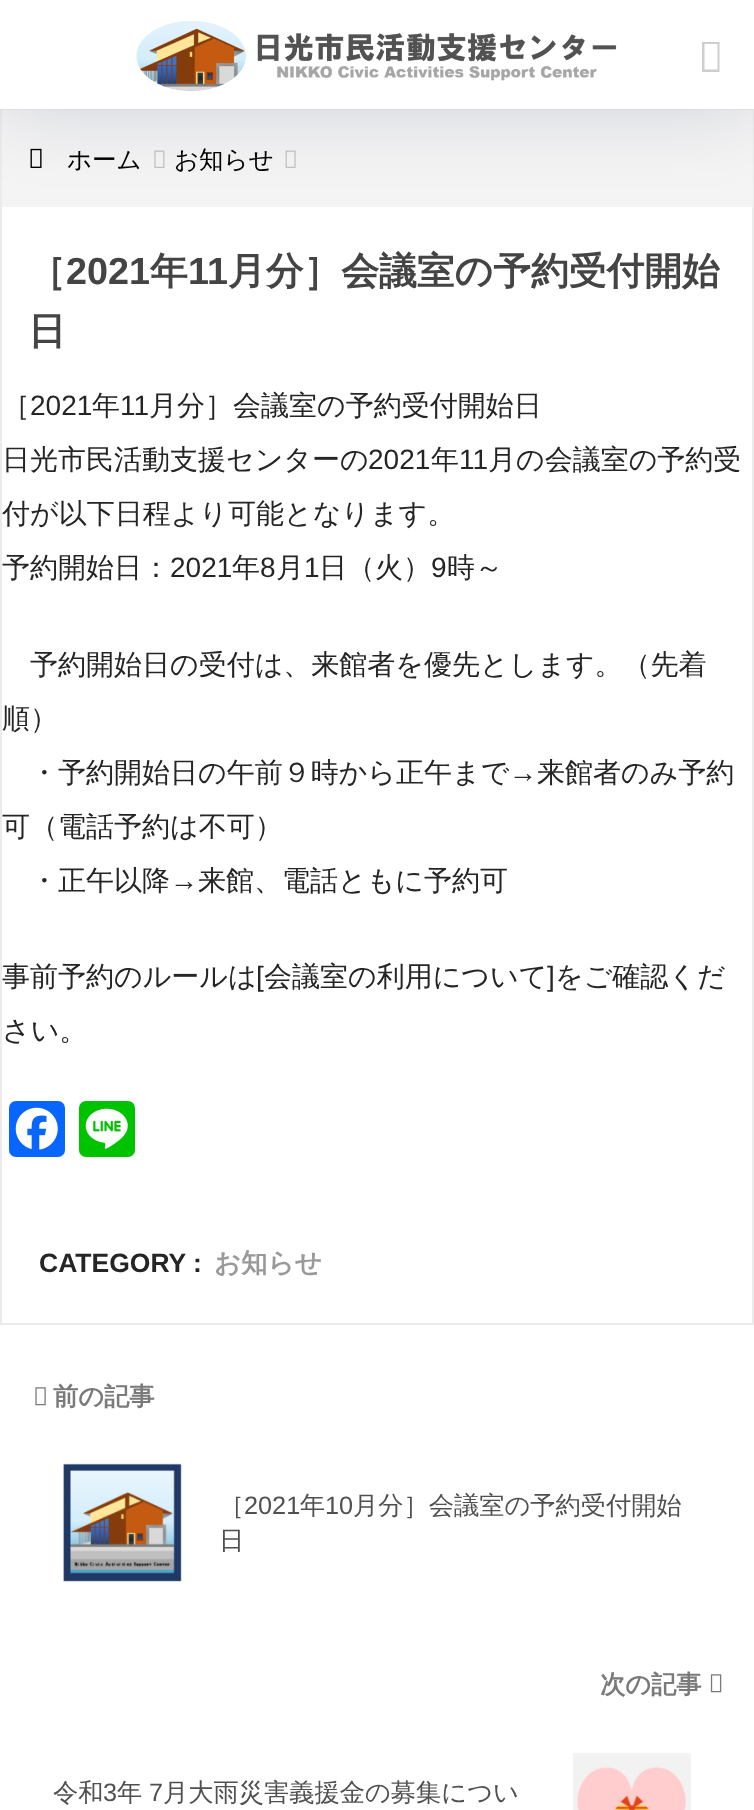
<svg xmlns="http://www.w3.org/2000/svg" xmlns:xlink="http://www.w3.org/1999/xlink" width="754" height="1810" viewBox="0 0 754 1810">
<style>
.cls-1{font:500 24.5px WenQuanYi Zen Hei;fill:#000000}
.cls-2{font:bold 37.75px WenQuanYi Zen Hei;fill:#444444}
.cls-3{font:bold 37.75px Liberation Sans;fill:#444444}
.cls-4{font:500 28px WenQuanYi Zen Hei;fill:#252525}
.cls-5{font:28px Liberation Sans;fill:#252525}
.cls-6{font:bold 26.5px Liberation Sans;fill:#252525}
.cls-7{font:bold 26.5px WenQuanYi Zen Hei;fill:#999999}
.cls-8{font:bold 25.25px WenQuanYi Zen Hei;fill:#7a7a7a}
.cls-9{font:500 25.25px WenQuanYi Zen Hei;fill:#505050}
.cls-10{font:25.25px Liberation Sans;fill:#505050}
</style>
<rect width="100%" height="100%" fill="#ffffff"/>
<rect fill="none" stroke="#ebebeb" stroke-width="2" x="1" y="110" width="752" height="1214"/>
<rect fill="#f4f4f4" x="2" y="110" width="751" height="97"/>
<image xlink:href="image1.png" x="30" y="148" width="12" height="20"/>
<image xlink:href="image2.png" x="154" y="150" width="11" height="18"/>
<image xlink:href="image3.png" x="285" y="150" width="11" height="18"/>
<rect fill="#000c42" fill-opacity="0.15" filter="blur(39.5px)" x="0" y="0" width="754" height="109"/>
<rect fill="#ffffff" x="0" y="0" width="754" height="109"/>
<image xlink:href="image0.png" x="136" y="21" width="481" height="70"/>
<path fill="#cecece" d="M702 72V42H719.5V72ZM704.5 69.5H717.5V44H704.5Z"/>
<rect fill="#0866ff" x="9" y="1101" width="56" height="56" rx="7"/>
<image xlink:href="image4.png" x="15" y="1107" width="43" height="43"/>
<rect fill="#00c300" x="79" y="1101" width="56" height="56" rx="7"/>
<image xlink:href="image5.png" x="85" y="1108" width="43" height="41"/>
<image xlink:href="image6.png" x="35" y="1387" width="11" height="19"/>
<image xlink:href="image7.png" x="63" y="1463" width="119" height="119"/>
<image xlink:href="image8.png" x="710" y="1674" width="12" height="19"/>
<image xlink:href="image9.png" x="573" y="1753" width="118" height="57"/>
<text class="cls-1" x="67" y="168">ホーム</text>
<text class="cls-1" x="174" y="168">お知らせ</text>
<text class="cls-2" x="28" y="284">［</text>
<text class="cls-3" x="66" y="284">2021</text>
<text class="cls-2" x="150" y="284">年</text>
<text class="cls-3" x="188" y="284">11</text>
<text class="cls-2" x="228" y="284">月分］会議室の予約受付開始</text>
<text class="cls-2" x="28" y="344">日</text>
<text class="cls-4" x="2" y="415">［</text>
<text class="cls-5" x="30" y="415">2021</text>
<text class="cls-4" x="92" y="415">年</text>
<text class="cls-5" x="120" y="415">11</text>
<text class="cls-4" x="149" y="415">月分］会議室の予約受付開始日</text>
<text class="cls-4" x="2" y="469">日光市民活動支援センターの</text>
<text class="cls-5" x="368" y="469">2021</text>
<text class="cls-4" x="431" y="469">年</text>
<text class="cls-5" x="459" y="469">11</text>
<text class="cls-4" x="488" y="469">月の会議室の予約受</text>
<text class="cls-4"><tspan x="2" y="523">付が以下日程より可能となります。</tspan><tspan x="2" y="577">予約開始日：</tspan></text>
<text class="cls-5" x="170" y="577">2021</text>
<text class="cls-4" x="232" y="577">年</text>
<text class="cls-5" x="260" y="577">8</text>
<text class="cls-4" x="276" y="577">月</text>
<text class="cls-5" x="304" y="577">1</text>
<text class="cls-4" x="319" y="577">日（火）</text>
<text class="cls-5" x="431" y="577">9</text>
<text class="cls-4" x="447" y="577">時～</text>
<text class="cls-4" x="30" y="674">予約開始日の受付は、来館者を優先とします。（先着</text>
<text class="cls-4" x="2" y="728">順）</text>
<text class="cls-4" x="30" y="782">・予約開始日の午前９時から正午まで</text>
<text class="cls-5" x="509" y="782">→</text>
<text class="cls-4" x="537" y="782">来館者のみ予約</text>
<text class="cls-4" x="2" y="836">可（電話予約は不可）</text>
<text class="cls-4" x="30" y="890">・正午以降</text>
<text class="cls-5" x="170" y="890">→</text>
<text class="cls-4" x="198" y="890">来館、電話ともに予約可</text>
<text class="cls-4" x="2" y="986">事前予約のルールは</text>
<text class="cls-5" x="256" y="986">[</text>
<text class="cls-4" x="264" y="986">会議室の利用について</text>
<text class="cls-5" x="547" y="986">]</text>
<text class="cls-4" x="555" y="986">をご確認くだ</text>
<text class="cls-4" x="2" y="1040">さい。</text>
<text class="cls-6" x="39" y="1272">CATEGORY :</text>
<text class="cls-7" x="214" y="1272">お知らせ</text>
<text class="cls-8" x="53" y="1405">前の記事</text>
<text class="cls-9" x="219" y="1514">［</text>
<text class="cls-10" x="244" y="1514">2021</text>
<text class="cls-9" x="300" y="1514">年</text>
<text class="cls-10" x="325" y="1514">10</text>
<text class="cls-9" x="353" y="1514">月分］会議室の予約受付開始</text>
<text class="cls-9" x="219" y="1549">日</text>
<text class="cls-8" x="600" y="1693">次の記事</text>
<text class="cls-9" x="53" y="1801">令和</text>
<text class="cls-10" x="103" y="1801">3</text>
<text class="cls-9" x="117" y="1801">年</text>
<text class="cls-10" x="149" y="1801">7</text>
<text class="cls-9" x="163" y="1801">月大雨災害義援金の募集につい</text>
</svg>
